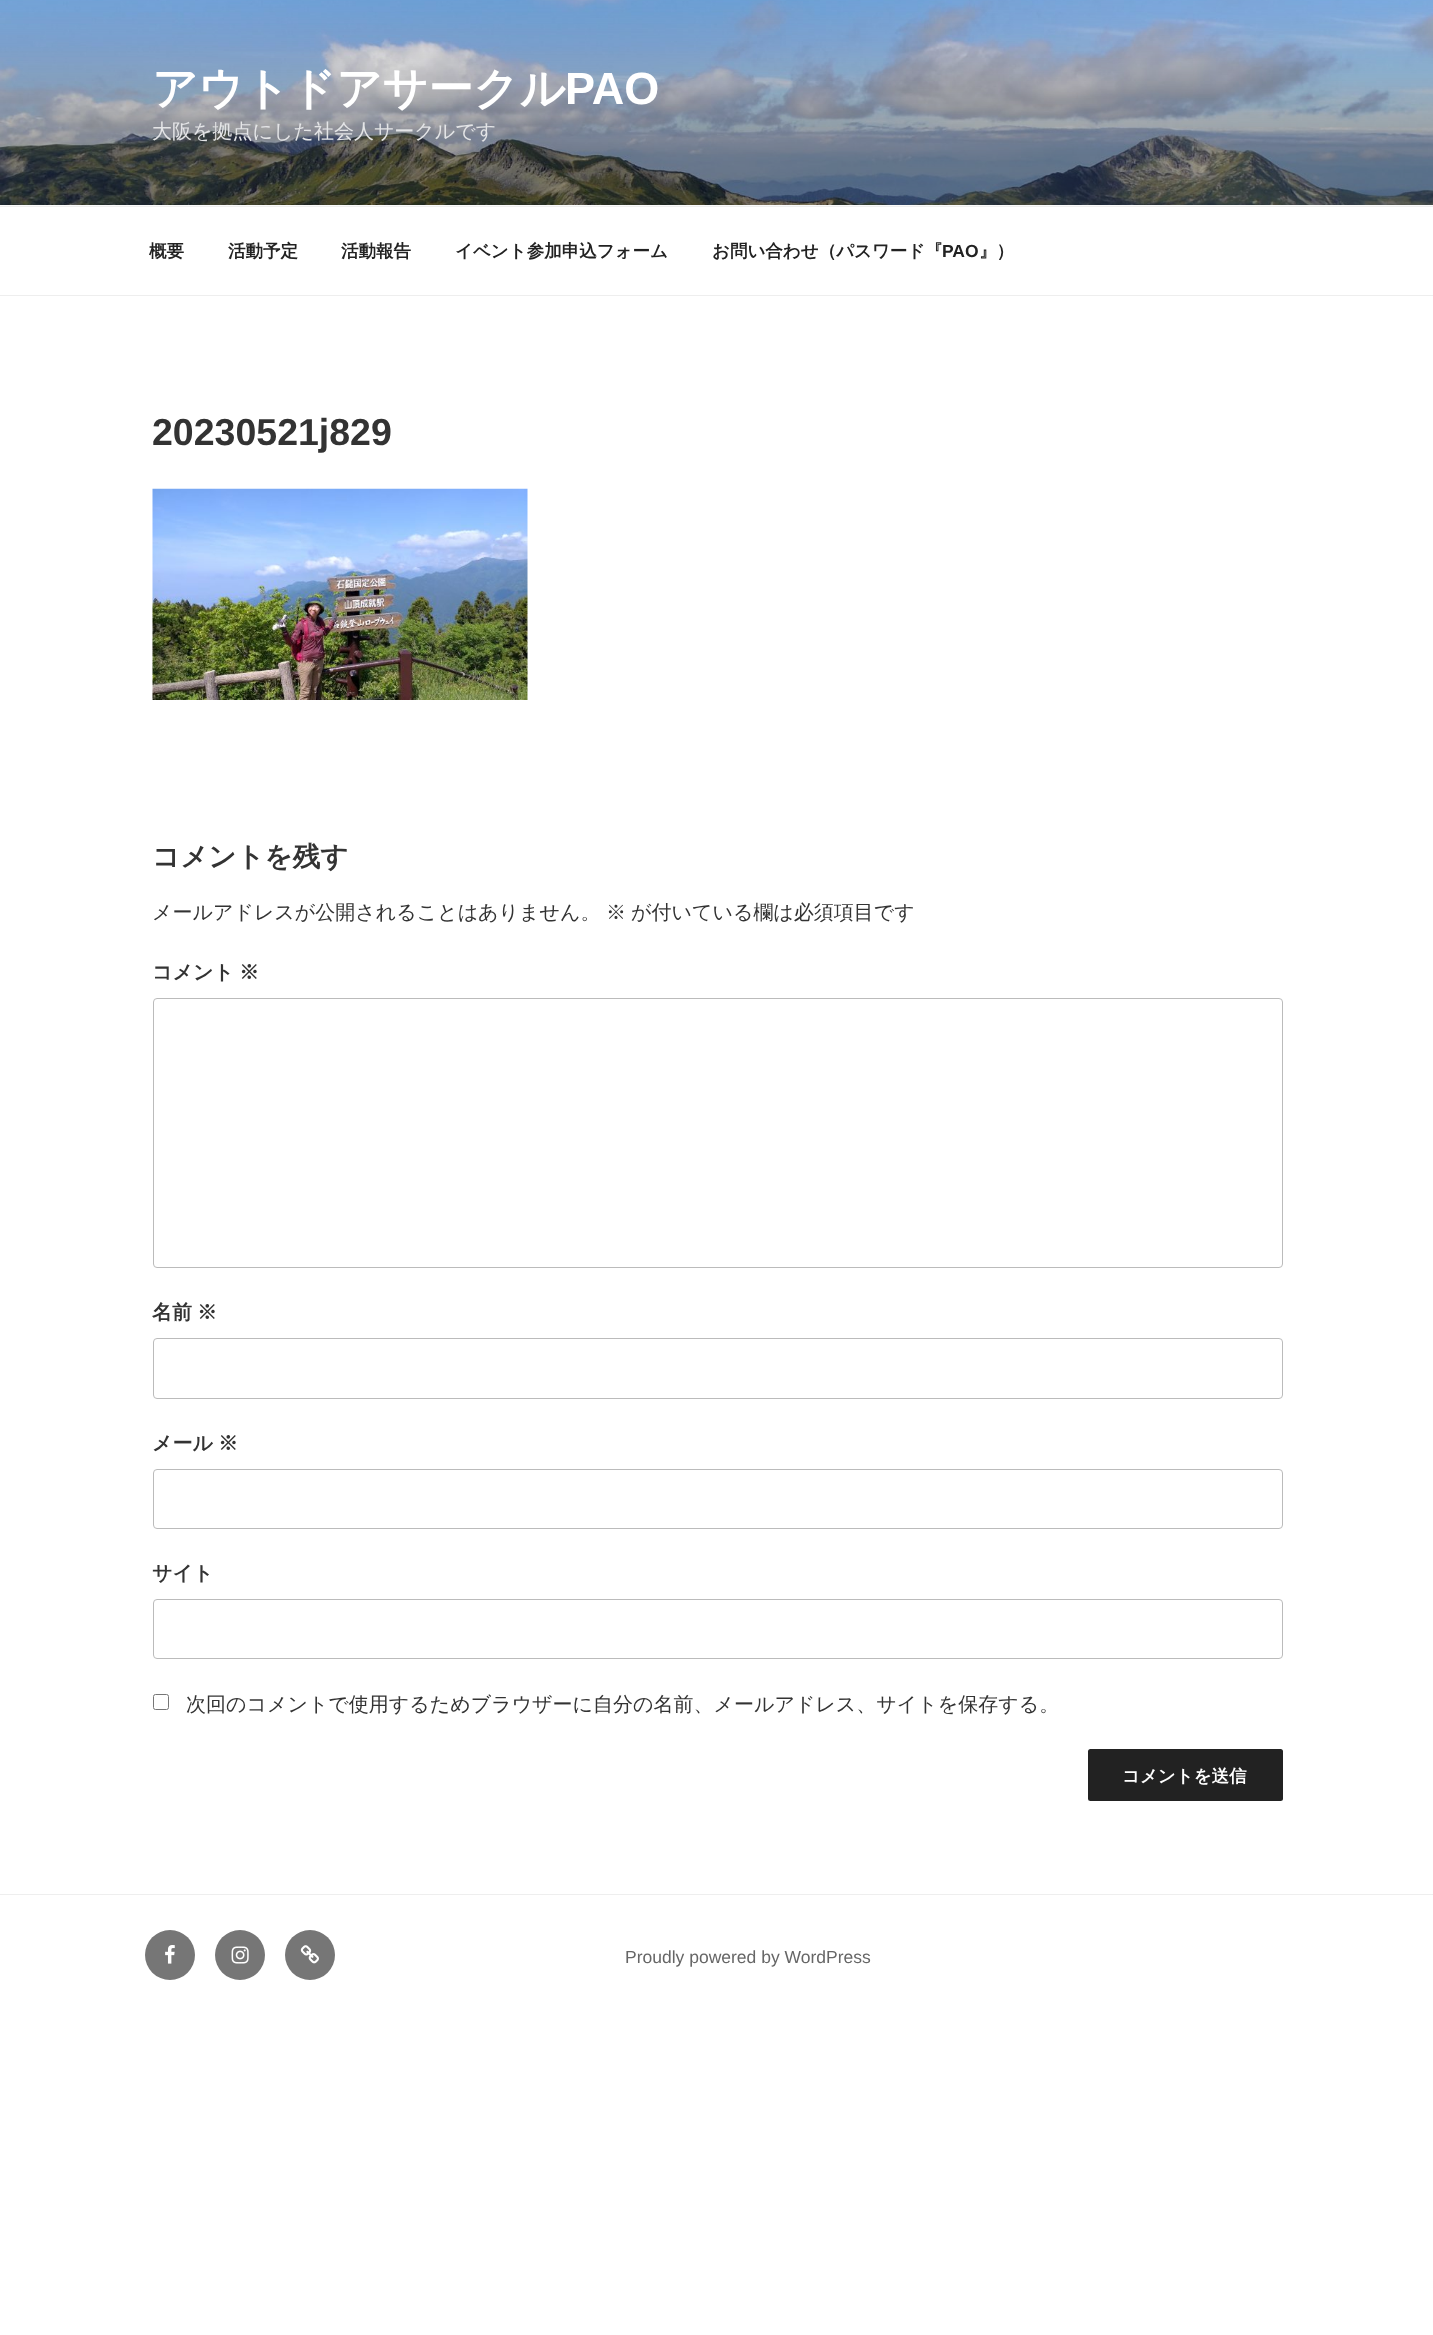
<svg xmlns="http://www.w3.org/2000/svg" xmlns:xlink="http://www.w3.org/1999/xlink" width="1433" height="2335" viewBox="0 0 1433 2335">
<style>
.cls-1{font:bold 45px WenQuanYi Zen Hei;fill:#ffffff}
.cls-2{font:bold 45px Liberation Sans;fill:#ffffff}
.cls-3{font:500 20px WenQuanYi Zen Hei;fill:#e4e5e7}
.cls-4{font:bold 17.5px WenQuanYi Zen Hei;fill:#222222}
.cls-5{font:bold 17.5px Liberation Sans;fill:#222222}
.cls-6{font:bold 37.5px Liberation Sans;fill:#333333}
.cls-7{font:bold 27.5px WenQuanYi Zen Hei;fill:#333333}
.cls-8{font:500 20px WenQuanYi Zen Hei;fill:#333333}
.cls-9{font:bold 20px WenQuanYi Zen Hei;fill:#333333}
.cls-10{font:bold 17.5px WenQuanYi Zen Hei;fill:#ffffff}
.cls-11{font:17.5px Liberation Sans;fill:#666666}
</style>
<rect width="100%" height="100%" fill="#ffffff"/>
<rect fill="#fafafa" x="0" y="205" width="1433" height="1"/>
<image xlink:href="image0.png" x="0" y="0" width="1433" height="205"/>
<rect fill="#eeeeee" x="0" y="206" width="1433" height="1"/>
<rect fill="#eeeeee" x="0" y="295" width="1433" height="1"/>
<image xlink:href="image1.png" x="152" y="488" width="376" height="212"/>
<rect fill="none" stroke="#bbbbbb" x="153.5" y="998.5" width="1129" height="269" rx="3.5"/>
<rect fill="none" stroke="#bbbbbb" x="153.5" y="1338.5" width="1129" height="60" rx="3.5"/>
<rect fill="none" stroke="#bbbbbb" x="153.5" y="1469.5" width="1129" height="59" rx="3.5"/>
<rect fill="none" stroke="#bbbbbb" x="153.5" y="1599.5" width="1129" height="59" rx="3.5"/>
<rect fill="none" stroke="#767676" x="153.5" y="1694.5" width="15" height="15" rx="2"/>
<rect fill="#222222" x="1088" y="1749" width="195" height="52" rx="2.5"/>
<rect fill="#eeeeee" x="0" y="1894" width="1433" height="1"/>
<circle fill="#767676" cx="170" cy="1955" r="25"/>
<image xlink:href="image2.png" x="165" y="1945" width="10" height="19"/>
<circle fill="#767676" cx="240" cy="1955" r="25"/>
<image xlink:href="image3.png" x="231" y="1946" width="18" height="18"/>
<circle fill="#767676" cx="310" cy="1955" r="25"/>
<image xlink:href="image4.png" x="300" y="1945" width="19" height="19"/>
<text class="cls-1" x="152" y="104">アウトドアサークル</text>
<text class="cls-2" x="565" y="104">PAO</text>
<text class="cls-3" x="152" y="138">大阪を拠点にした社会人サークルです</text>
<text class="cls-4" x="149" y="257">概要</text>
<text class="cls-4" x="228" y="257">活動予定</text>
<text class="cls-4" x="341" y="257">活動報告</text>
<text class="cls-4" x="455" y="257">イベント参加申込フォーム</text>
<text class="cls-4" x="712" y="257">お問い合わせ（パスワード『</text>
<text class="cls-5" x="942" y="257">PAO</text>
<text class="cls-4" x="979" y="257">』）</text>
<text class="cls-6" x="152" y="445">20230521j829</text>
<text class="cls-7" x="152" y="866">コメントを残す</text>
<text class="cls-8" x="152" y="919">メールアドレスが公開されることはありません。</text>
<text class="cls-8" x="606" y="919">※</text>
<text class="cls-8" x="631" y="919">が付いている欄は必須項目です</text>
<text class="cls-9" x="152" y="979">コメント</text>
<text class="cls-9" x="239" y="979">※</text>
<text class="cls-9" x="152" y="1319">名前</text>
<text class="cls-9" x="197" y="1319">※</text>
<text class="cls-9" x="152" y="1450">メール</text>
<text class="cls-9" x="218" y="1450">※</text>
<text class="cls-9" x="152" y="1580">サイト</text>
<text class="cls-8" x="186" y="1711">次回のコメントで使用するためブラウザーに自分の名前、メールアドレス、サイトを保存する。</text>
<text class="cls-10" x="1122" y="1782">コメントを送信</text>
<text class="cls-11" x="625" y="1963">Proudly powered by WordPress</text>
</svg>
